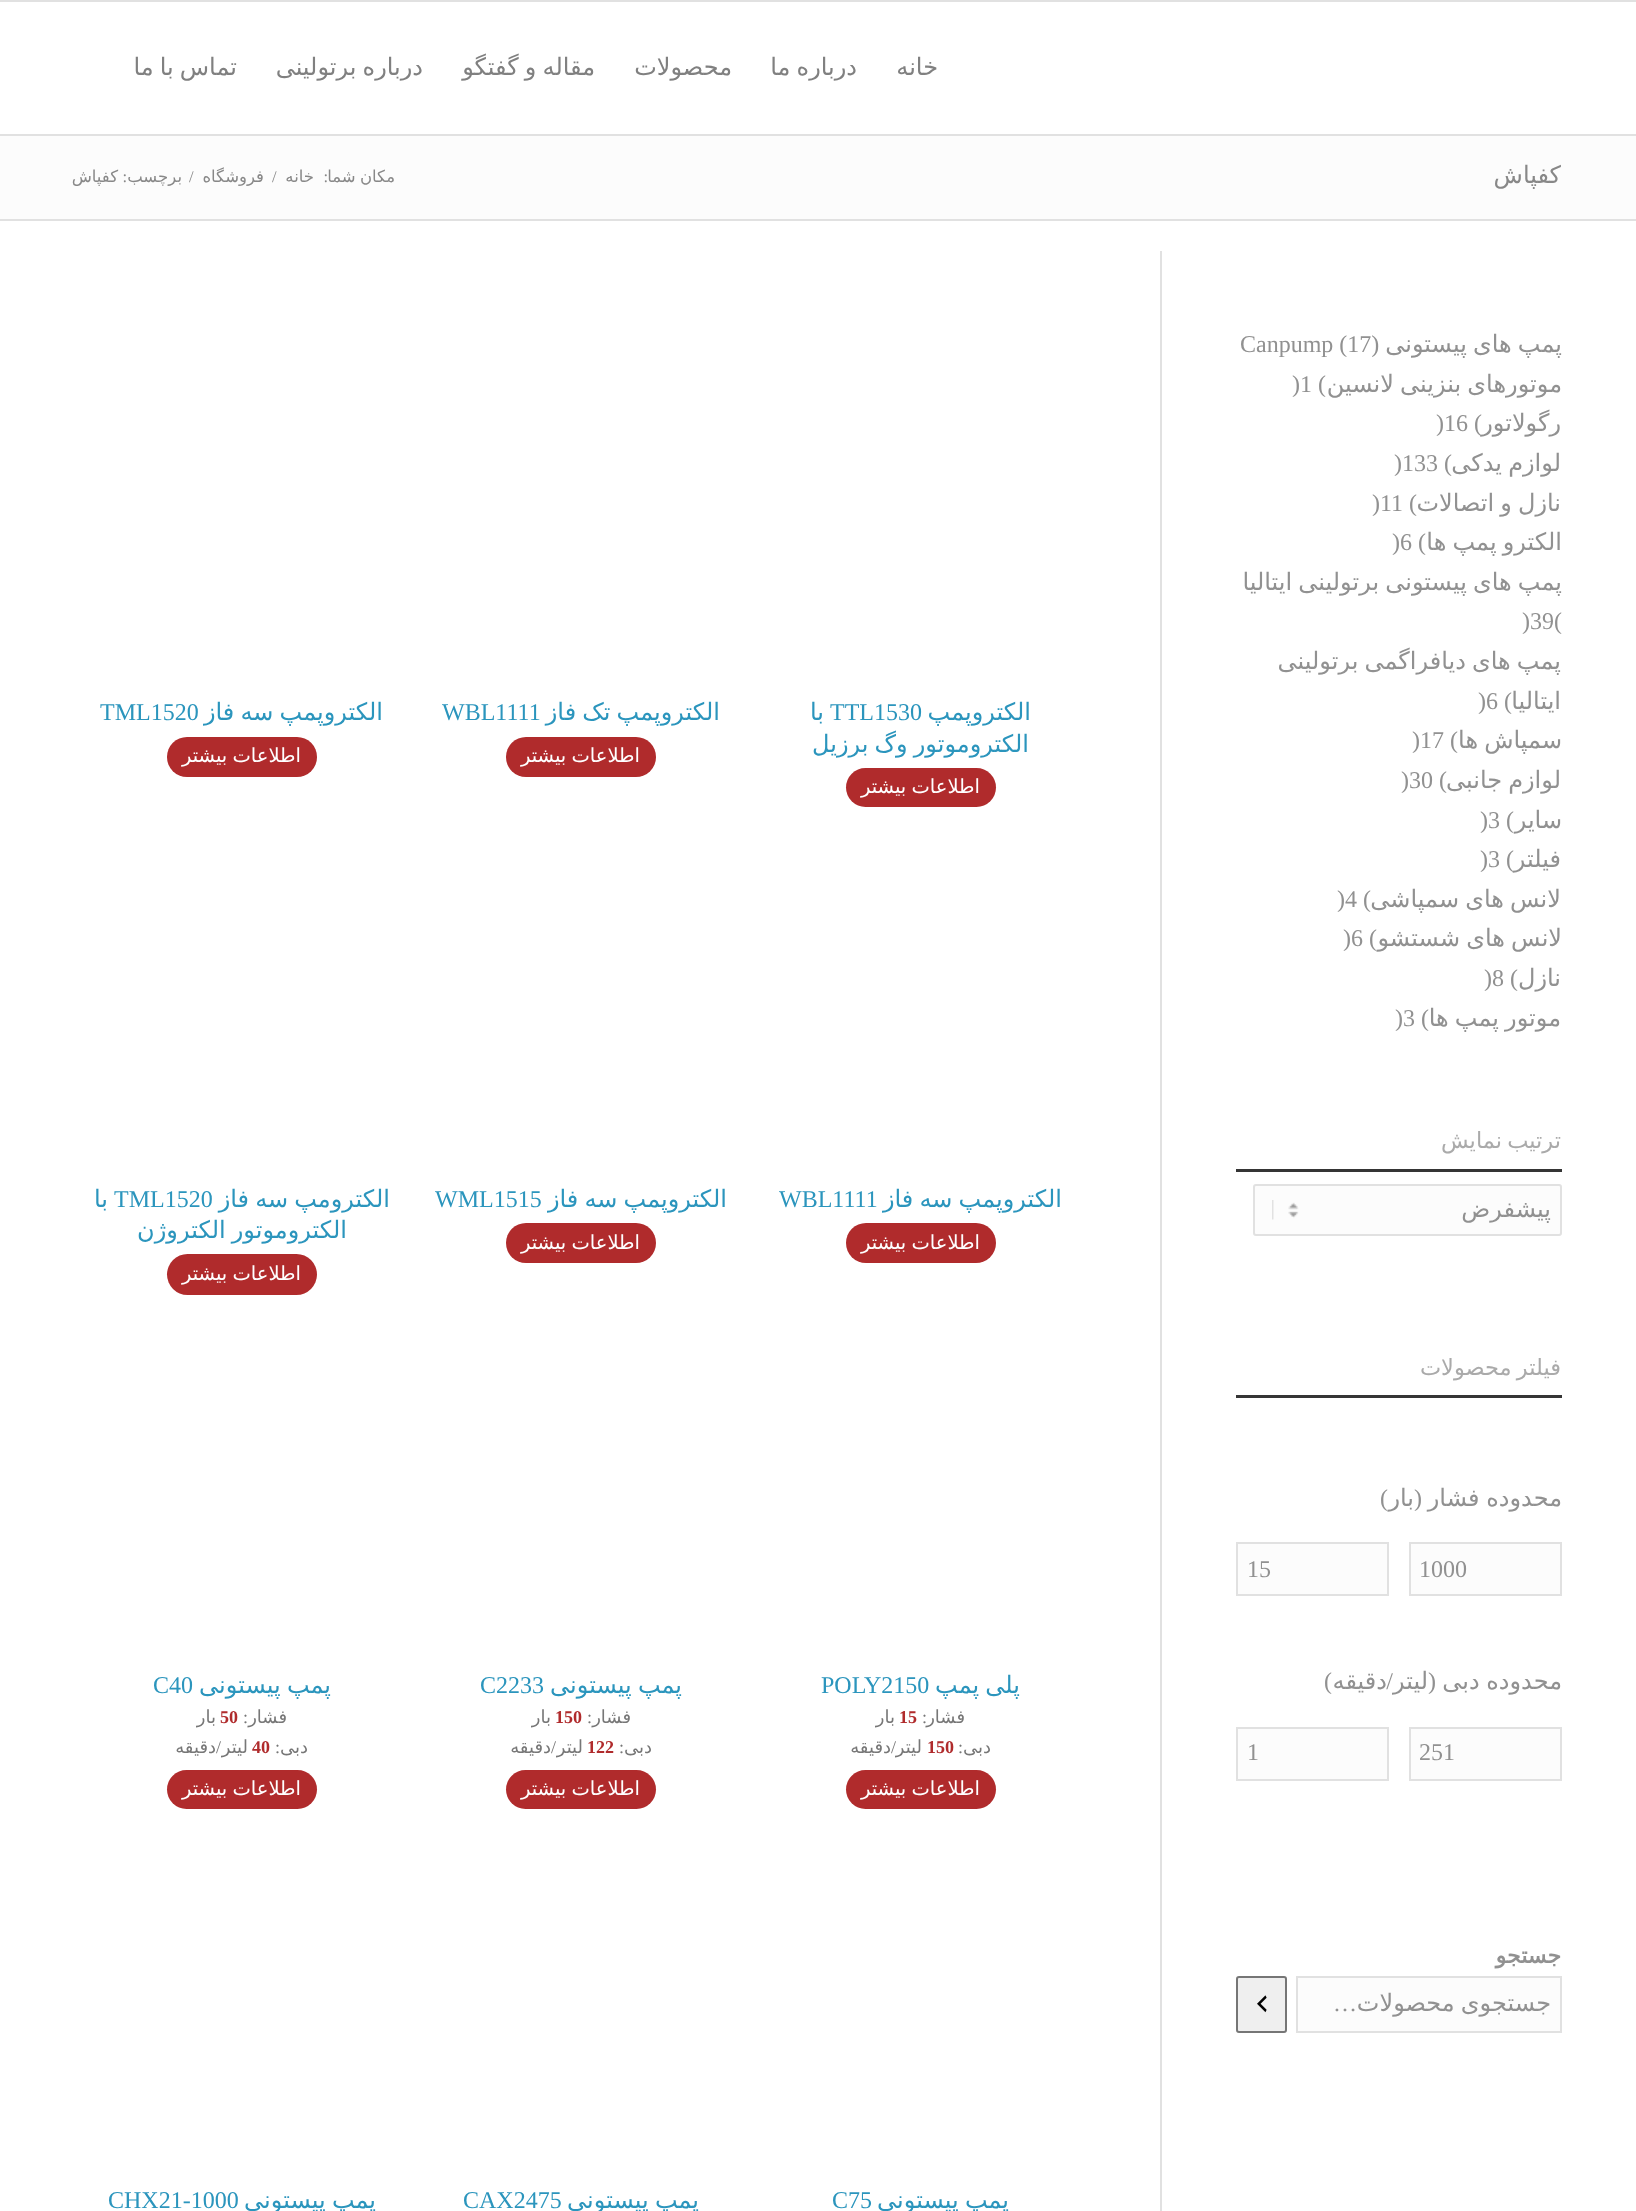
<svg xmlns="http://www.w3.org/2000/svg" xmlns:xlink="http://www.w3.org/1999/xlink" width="1636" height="2211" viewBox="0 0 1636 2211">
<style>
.cls-1{font:24px DejaVu Sans;direction:rtl;fill:#808080}
.cls-2{font:24px DejaVu Sans;direction:rtl;fill:#888888}
.cls-3{font:16.5px DejaVu Sans;direction:rtl;fill:#888888}
.cls-4{font:16.5px Liberation Serif;direction:rtl;fill:#888888}
.cls-5{font:16.5px Liberation Serif;fill:#888888}
.cls-6{font:24px DejaVu Sans;direction:rtl;fill:#919191}
.cls-7{font:24px Liberation Serif;fill:#919191}
.cls-8{font:22.5px DejaVu Sans;direction:rtl;fill:#aaaaaa}
.cls-9{font:24px Liberation Serif;direction:rtl;fill:#919191}
.cls-10{font:bold 22px DejaVu Sans;direction:rtl;fill:#919191}
.cls-11{font:24px DejaVu Sans;direction:rtl;fill:#2b95bd}
.cls-12{font:24px Liberation Serif;fill:#2b95bd}
.cls-13{font:19.5px DejaVu Sans;direction:rtl;fill:#ffffff}
.cls-14{font:18px Liberation Serif;direction:rtl;fill:#777777}
.cls-15{font:18px DejaVu Sans;direction:rtl;fill:#777777}
.cls-16{font:bold 18px Liberation Serif;fill:#b02b2c}
</style>
<rect width="100%" height="100%" fill="#ffffff"/>
<rect fill="#e1e1e1" x="0" y="0" width="1636" height="2"/>
<rect fill="#e1e1e1" x="0" y="134" width="1636" height="2"/>
<rect fill="#fcfcfc" x="0" y="136" width="1636" height="83"/>
<rect fill="#e1e1e1" x="0" y="219" width="1636" height="2"/>
<rect fill="#353535" x="1236" y="1169" width="326" height="3"/>
<rect fill="#fcfcfc" x="1253" y="1184" width="309" height="52" rx="3"/>
<image xlink:href="image0.png" x="1272" y="1200" width="27" height="20"/>
<rect fill="none" stroke="#e1e1e1" stroke-width="2" x="1254" y="1185" width="307" height="50" rx="2"/>
<rect fill="#353535" x="1236" y="1395" width="326" height="3"/>
<rect fill="#fcfcfc" stroke="#e1e1e1" stroke-width="2" x="1410" y="1543" width="151" height="52"/>
<rect fill="#fcfcfc" stroke="#e1e1e1" stroke-width="2" x="1237" y="1543" width="151" height="52"/>
<rect fill="#fcfcfc" stroke="#e1e1e1" stroke-width="2" x="1410" y="1728" width="151" height="52"/>
<rect fill="#fcfcfc" stroke="#e1e1e1" stroke-width="2" x="1237" y="1728" width="151" height="52"/>
<rect fill="#fcfcfc" stroke="#e1e1e1" stroke-width="2" x="1297" y="1977" width="264" height="55"/>
<rect fill="#efefef" stroke="#767676" stroke-width="2" x="1237" y="1977" width="49" height="55" rx="2"/>
<image xlink:href="image1.png" x="1257" y="1995" width="10" height="18"/>
<rect fill="#e1e1e1" x="1160" y="251" width="2" height="1960"/>
<rect fill="#b02b2c" x="846" y="768" width="150" height="39" rx="19.5"/>
<rect fill="#b02b2c" x="506" y="737" width="150" height="40" rx="20"/>
<rect fill="#b02b2c" x="167" y="737" width="150" height="40" rx="20"/>
<rect fill="#b02b2c" x="846" y="1223" width="150" height="40" rx="20"/>
<rect fill="#b02b2c" x="506" y="1223" width="150" height="40" rx="20"/>
<rect fill="#b02b2c" x="167" y="1254" width="150" height="41" rx="20.5"/>
<rect fill="#b02b2c" x="846" y="1770" width="150" height="39" rx="19.5"/>
<rect fill="#b02b2c" x="506" y="1770" width="150" height="39" rx="19.5"/>
<rect fill="#b02b2c" x="167" y="1770" width="150" height="39" rx="19.5"/>
<text class="cls-1" x="938" y="75">خانه</text>
<text class="cls-1" x="857" y="75" word-spacing="-1.5">درباره ما</text>
<text class="cls-1" x="732" y="75">محصولات</text>
<text class="cls-1" x="595" y="75" word-spacing="-1.5">مقاله و گفتگو</text>
<text class="cls-1" x="423" y="75" word-spacing="-1.5">درباره برتولینی</text>
<text class="cls-1" x="237" y="75" word-spacing="-1.5">تماس با ما</text>
<text class="cls-2" x="1561" y="183">کفپاش</text>
<text class="cls-3" x="395" y="182" word-spacing="-1">مکان شما</text>
<text class="cls-4" x="328" y="182">:</text>
<text class="cls-3" x="314" y="182">خانه</text>
<text class="cls-5" x="272" y="182">/</text>
<text class="cls-3" x="264" y="182">فروشگاه</text>
<text class="cls-5" x="189" y="182">/</text>
<text class="cls-3" x="182" y="182">برچسب</text>
<text class="cls-4" x="127" y="182">:</text>
<text class="cls-3" x="118" y="182">کفپاش</text>
<text class="cls-6" x="1562" y="352" word-spacing="-1.5">پمپ های پیستونی</text>
<text class="cls-7" x="1240" y="352">Canpump (17)</text>
<text class="cls-6" x="1562" y="392" word-spacing="-1.5">موتورهای بنزینی لانسین</text>
<text class="cls-7" x="1318" y="392">(</text>
<text class="cls-7" x="1300" y="392">1</text>
<text class="cls-7" x="1292" y="392">)</text>
<text class="cls-6" x="1561" y="431">رگولاتور</text>
<text class="cls-7" x="1474" y="431">(</text>
<text class="cls-7" x="1444" y="431">16</text>
<text class="cls-7" x="1436" y="431">)</text>
<text class="cls-6" x="1561" y="471" word-spacing="-1.5">لوازم یدکی</text>
<text class="cls-7" x="1444" y="471">(</text>
<text class="cls-7" x="1402" y="471">133</text>
<text class="cls-7" x="1394" y="471">)</text>
<text class="cls-6" x="1561" y="511" word-spacing="-1.5">نازل و اتصالات</text>
<text class="cls-7" x="1409" y="511">(</text>
<text class="cls-7" x="1380" y="511">11</text>
<text class="cls-7" x="1372" y="511">)</text>
<text class="cls-6" x="1562" y="550" word-spacing="-1.5">الکترو پمپ ها</text>
<text class="cls-7" x="1418" y="550">(</text>
<text class="cls-7" x="1400" y="550">6</text>
<text class="cls-7" x="1392" y="550">)</text>
<text class="cls-6" x="1562" y="590" word-spacing="-1.5">پمپ های پیستونی برتولینی ایتالیا</text>
<text class="cls-7" x="1554" y="629">(</text>
<text class="cls-7" x="1530" y="629">39</text>
<text class="cls-7" x="1522" y="629">)</text>
<text class="cls-6"><tspan x="1561" y="669" word-spacing="-1.5">پمپ های دیافراگمی برتولینی</tspan><tspan x="1561" y="709">ایتالیا</tspan></text>
<text class="cls-7" x="1504" y="709">(</text>
<text class="cls-7" x="1486" y="709">6</text>
<text class="cls-7" x="1478" y="709">)</text>
<text class="cls-6" x="1562" y="748" word-spacing="-1.5">سمپاش ها</text>
<text class="cls-7" x="1450" y="748">(</text>
<text class="cls-7" x="1420" y="748">17</text>
<text class="cls-7" x="1412" y="748">)</text>
<text class="cls-6" x="1561" y="788" word-spacing="-1.5">لوازم جانبی</text>
<text class="cls-7" x="1439" y="788">(</text>
<text class="cls-7" x="1409" y="788">30</text>
<text class="cls-7" x="1401" y="788">)</text>
<text class="cls-6" x="1562" y="828">سایر</text>
<text class="cls-7" x="1506" y="828">(</text>
<text class="cls-7" x="1488" y="828">3</text>
<text class="cls-7" x="1480" y="828">)</text>
<text class="cls-6" x="1561" y="867">فیلتر</text>
<text class="cls-7" x="1506" y="867">(</text>
<text class="cls-7" x="1488" y="867">3</text>
<text class="cls-7" x="1480" y="867">)</text>
<text class="cls-6" x="1561" y="907" word-spacing="-1.5">لانس های سمپاشی</text>
<text class="cls-7" x="1363" y="907">(</text>
<text class="cls-7" x="1345" y="907">4</text>
<text class="cls-7" x="1337" y="907">)</text>
<text class="cls-6" x="1562" y="946" word-spacing="-1.5">لانس های شستشو</text>
<text class="cls-7" x="1369" y="946">(</text>
<text class="cls-7" x="1351" y="946">6</text>
<text class="cls-7" x="1343" y="946">)</text>
<text class="cls-6" x="1561" y="986">نازل</text>
<text class="cls-7" x="1510" y="986">(</text>
<text class="cls-7" x="1492" y="986">8</text>
<text class="cls-7" x="1484" y="986">)</text>
<text class="cls-6" x="1561" y="1026" word-spacing="-1.5">موتور پمپ ها</text>
<text class="cls-7" x="1421" y="1026">(</text>
<text class="cls-7" x="1403" y="1026">3</text>
<text class="cls-7" x="1395" y="1026">)</text>
<text class="cls-8" x="1561" y="1148" word-spacing="-2">ترتیب نمایش</text>
<text class="cls-6" x="1551" y="1217">پیشفرض</text>
<text class="cls-8" x="1561" y="1375" word-spacing="-2">فیلتر محصولات</text>
<text class="cls-6" x="1562" y="1506" word-spacing="-1">محدوده فشار</text>
<text class="cls-9" x="1422" y="1506">(</text>
<text class="cls-9" x="1388" y="1506">)</text>
<text class="cls-6" x="1414" y="1506">بار</text>
<text class="cls-7" x="1419" y="1577">1000</text>
<text class="cls-7" x="1247" y="1577">15</text>
<text class="cls-6" x="1562" y="1689" word-spacing="-1">محدوده دبی</text>
<text class="cls-9" x="1436" y="1689">(</text>
<text class="cls-9" x="1393" y="1689">/</text>
<text class="cls-6" x="1428" y="1689">لیتر</text>
<text class="cls-6" x="1387" y="1689">دقیقه</text>
<text class="cls-9" x="1332" y="1689">)</text>
<text class="cls-7" x="1419" y="1760">251</text>
<text class="cls-7" x="1247" y="1760">1</text>
<text class="cls-10" x="1561" y="1963">جستجو</text>
<text class="cls-6" x="1551" y="2011" word-spacing="-1.5">جستجوی محصولات</text>
<text class="cls-9" x="1357" y="2011">…</text>
<text class="cls-11" x="1031" y="720">الکتروپمپ</text>
<text class="cls-12" x="830" y="720">TTL1530</text>
<text class="cls-11" x="824" y="720">با</text>
<text class="cls-11" x="1029" y="752" word-spacing="-1.5">الکتروموتور وگ برزیل</text>
<text class="cls-13" x="980" y="793" word-spacing="-1">اطلاعات بیشتر</text>
<text class="cls-11" x="720" y="720" word-spacing="-1.5">الکتروپمپ تک فاز</text>
<text class="cls-12" x="442" y="720">WBL1111</text>
<text class="cls-13" x="640" y="762" word-spacing="-1">اطلاعات بیشتر</text>
<text class="cls-11" x="383" y="720" word-spacing="-1.5">الکتروپمپ سه فاز</text>
<text class="cls-12" x="100" y="720">TML1520</text>
<text class="cls-13" x="301" y="762" word-spacing="-1">اطلاعات بیشتر</text>
<text class="cls-11" x="1062" y="1207" word-spacing="-1.5">الکتروپمپ سه فاز</text>
<text class="cls-12" x="779" y="1207">WBL1111</text>
<text class="cls-13" x="980" y="1249" word-spacing="-1">اطلاعات بیشتر</text>
<text class="cls-11" x="727" y="1207" word-spacing="-1.5">الکتروپمپ سه فاز</text>
<text class="cls-12" x="435" y="1207">WML1515</text>
<text class="cls-13" x="640" y="1249" word-spacing="-1">اطلاعات بیشتر</text>
<text class="cls-11" x="390" y="1207" word-spacing="-1.5">الکترومپ سه فاز</text>
<text class="cls-12" x="114" y="1207">TML1520</text>
<text class="cls-11" x="108" y="1207">با</text>
<text class="cls-11" x="347" y="1238" word-spacing="-1.5">الکتروموتور الکتروژن</text>
<text class="cls-13" x="301" y="1280" word-spacing="-1">اطلاعات بیشتر</text>
<text class="cls-11" x="1020" y="1693" word-spacing="-1.5">پلی پمپ</text>
<text class="cls-12" x="821" y="1693">POLY2150</text>
<text class="cls-14" x="927" y="1723">:</text>
<text class="cls-15" x="965" y="1723">فشار</text>
<text class="cls-16" x="899" y="1723">15</text>
<text class="cls-15" x="895" y="1723">بار</text>
<text class="cls-15" x="991" y="1753">دبی</text>
<text class="cls-14" x="963" y="1753">:</text>
<text class="cls-16" x="927" y="1753">150</text>
<text class="cls-14" x="896" y="1753">/</text>
<text class="cls-15" x="922" y="1753">لیتر</text>
<text class="cls-15" x="891" y="1753">دقیقه</text>
<text class="cls-13" x="980" y="1795" word-spacing="-1">اطلاعات بیشتر</text>
<text class="cls-11" x="682" y="1693" word-spacing="-1.5">پمپ پیستونی</text>
<text class="cls-12" x="480" y="1693">C2233</text>
<text class="cls-15" x="631" y="1723">فشار</text>
<text class="cls-14" x="592" y="1723">:</text>
<text class="cls-16" x="555" y="1723">150</text>
<text class="cls-15" x="551" y="1723">بار</text>
<text class="cls-15" x="652" y="1753">دبی</text>
<text class="cls-14" x="624" y="1753">:</text>
<text class="cls-16" x="587" y="1753">122</text>
<text class="cls-14" x="556" y="1753">/</text>
<text class="cls-15" x="583" y="1753">لیتر</text>
<text class="cls-15" x="551" y="1753">دقیقه</text>
<text class="cls-13" x="640" y="1795" word-spacing="-1">اطلاعات بیشتر</text>
<text class="cls-11" x="331" y="1693" word-spacing="-1.5">پمپ پیستونی</text>
<text class="cls-12" x="153" y="1693">C40</text>
<text class="cls-15" x="287" y="1723">فشار</text>
<text class="cls-14" x="248" y="1723">:</text>
<text class="cls-16" x="220" y="1723">50</text>
<text class="cls-15" x="216" y="1723">بار</text>
<text class="cls-15" x="308" y="1753">دبی</text>
<text class="cls-14" x="280" y="1753">:</text>
<text class="cls-16" x="252" y="1753">40</text>
<text class="cls-14" x="221" y="1753">/</text>
<text class="cls-15" x="248" y="1753">لیتر</text>
<text class="cls-15" x="216" y="1753">دقیقه</text>
<text class="cls-13" x="301" y="1795" word-spacing="-1">اطلاعات بیشتر</text>
<text class="cls-11" x="1009" y="2208" word-spacing="-1.5">پمپ پیستونی</text>
<text class="cls-12" x="832" y="2208">C75</text>
<text class="cls-11" x="699" y="2208" word-spacing="-1.5">پمپ پیستونی</text>
<text class="cls-12" x="463" y="2208">CAX2475</text>
<text class="cls-11" x="376" y="2208" word-spacing="-1.5">پمپ پیستونی</text>
<text class="cls-12" x="108" y="2208">CHX21-1000</text>
</svg>
